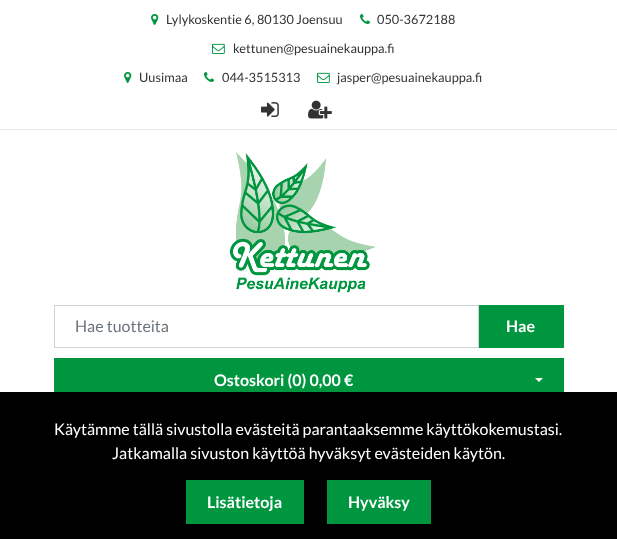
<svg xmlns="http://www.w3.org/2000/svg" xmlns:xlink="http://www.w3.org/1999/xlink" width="617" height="539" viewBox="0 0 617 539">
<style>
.cls-1{font:12.75px Lato;fill:#333333}
.cls-2{font:16px Lato;fill:#6c757d}
.cls-3{font:bold 16px Lato;fill:#ffffff}
.cls-4{font:16px Lato;fill:#ffffff}
</style>
<rect width="100%" height="100%" fill="#ffffff"/>
<rect fill="#eaeaea" x="0" y="129" width="617" height="1"/>
<image xlink:href="image0.png" x="151" y="14" width="8" height="11"/>
<image xlink:href="image1.png" x="360" y="14" width="10" height="10"/>
<image xlink:href="image2.png" x="212" y="43" width="13" height="11"/>
<image xlink:href="image0.png" x="124" y="72" width="8" height="11"/>
<image xlink:href="image1.png" x="204" y="72" width="10" height="10"/>
<image xlink:href="image2.png" x="317" y="72" width="13" height="11"/>
<image xlink:href="image3.png" x="261" y="102" width="18" height="15"/>
<image xlink:href="image4.png" x="308" y="100" width="24" height="19"/>
<image xlink:href="image5.png" x="229" y="152" width="147" height="141"/>
<rect fill="none" stroke="#ced4da" x="54.5" y="305.5" width="424" height="42"/>
<rect fill="#00963f" x="479" y="305" width="85" height="43"/>
<rect fill="#00963f" x="54" y="358" width="510" height="34"/>
<path fill="#ffffff" d="M535 378H543L539 382Z"/>
<rect fill="#000000" x="0" y="392" width="617" height="147"/>
<rect fill="#00963f" x="186" y="480" width="118" height="44"/>
<rect fill="#00963f" x="327" y="480" width="104" height="44"/>
<text class="cls-1" x="166" y="24">Lylykoskentie 6, 80130 Joensuu</text>
<text class="cls-1" x="377" y="24">050-3672188</text>
<text class="cls-1" x="233" y="53">kettunen@pesuainekauppa.fi</text>
<text class="cls-1" x="139" y="82">Uusimaa</text>
<text class="cls-1" x="222" y="82">044-3515313</text>
<text class="cls-1" x="337" y="82">jasper@pesuainekauppa.fi</text>
<text class="cls-2" x="75" y="332">Hae tuotteita</text>
<text class="cls-3" x="506" y="332">Hae</text>
<text class="cls-3" x="214" y="386">Ostoskori (0) 0,00 €</text>
<text class="cls-4" x="54" y="435">Käytämme tällä sivustolla evästeitä parantaaksemme käyttökokemustasi.</text>
<text class="cls-4" x="112" y="459">Jatkamalla sivuston käyttöä hyväksyt evästeiden käytön.</text>
<text class="cls-3" x="207" y="508">Lisätietoja</text>
<text class="cls-3" x="348" y="508">Hyväksy</text>
</svg>
